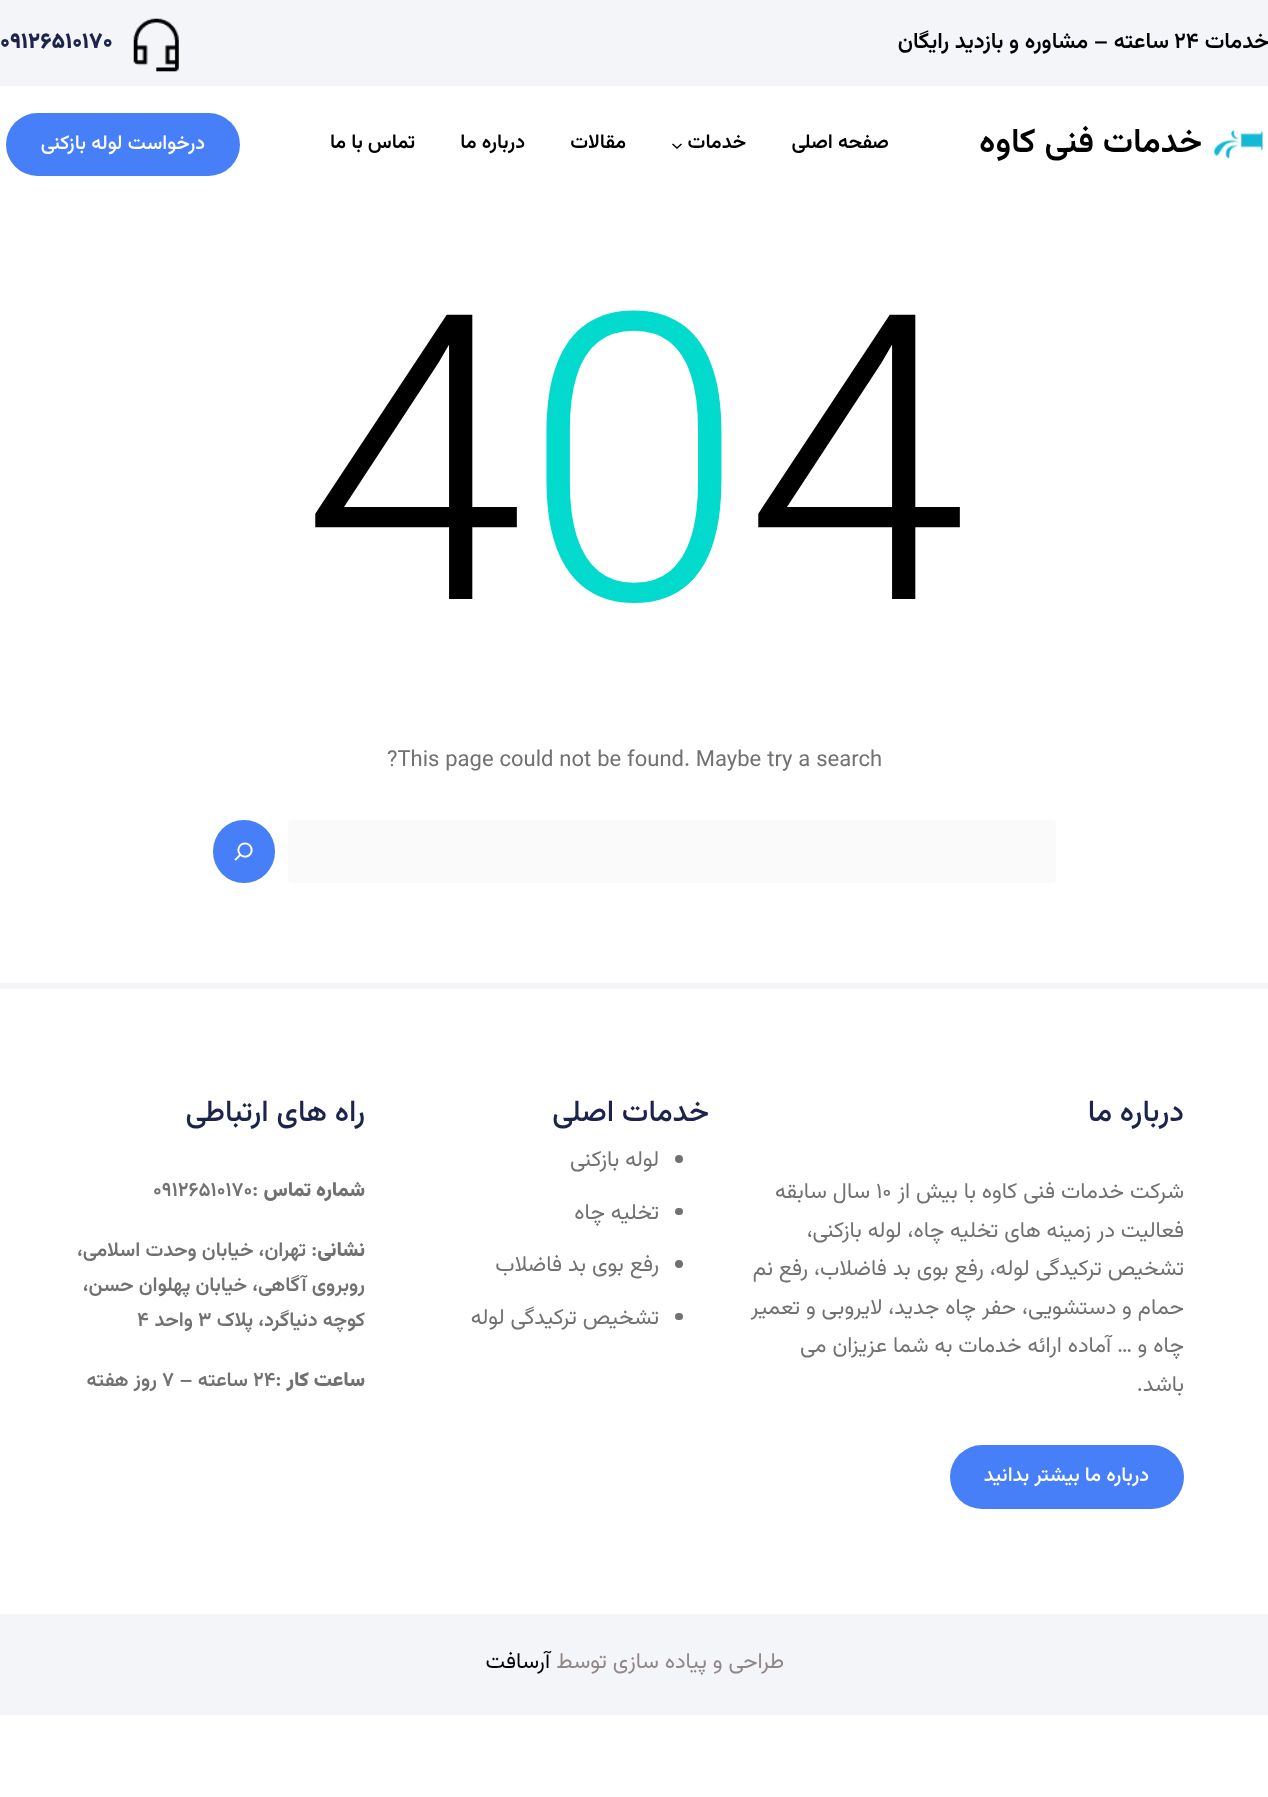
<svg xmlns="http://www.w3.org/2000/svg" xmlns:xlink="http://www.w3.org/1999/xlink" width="1268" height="1797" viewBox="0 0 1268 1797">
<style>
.cls-1{font:600 22px Vazirmatn;direction:rtl;fill:#000000}
.cls-2{font:600 22px Vazirmatn;fill:#000000}
.cls-3{font:900 22px Vazirmatn;letter-spacing:1.25px;fill:#1c244b}
.cls-4{font:600 34px Vazirmatn;direction:rtl;fill:#000000}
.cls-5{font:600 20px Vazirmatn;direction:rtl;fill:#000000}
.cls-6{font:500 20px Vazirmatn;direction:rtl;fill:#ffffff}
.cls-7{font:200 400px Vazirmatn;fill:#000000}
.cls-8{font:200 400px Vazirmatn;fill:#01dacc}
.cls-9{font:22px Vazirmatn;fill:#717171}
.cls-10{font:500 30px Vazirmatn;direction:rtl;fill:#1c244b}
.cls-11{font:22px Vazirmatn;direction:rtl;fill:#717171}
.cls-12{font:900 20px Vazirmatn;direction:rtl;fill:#717171}
.cls-13{font:600 20px Vazirmatn;fill:#717171}
.cls-14{font:600 20px Vazirmatn;direction:rtl;fill:#717171}
.cls-15{font:22px Vazirmatn;direction:rtl;fill:#908787}
.cls-16{font:22px Vazirmatn;direction:rtl;fill:#000000}
</style>
<rect width="100%" height="100%" fill="#ffffff"/>
<rect fill="#f3f5f8" x="0" y="0" width="1268" height="86"/>
<image xlink:href="image0.png" x="133" y="18" width="46" height="54"/>
<image xlink:href="image1.png" x="1213" y="130" width="50" height="29"/>
<path fill="none" stroke="#000000" stroke-width="1.5" d="M672.5 144L677 148L681.5 144"/>
<rect fill="#467ff7" x="6" y="113" width="234" height="63" rx="31.5"/>
<rect fill="#fafafa" x="288" y="820" width="768" height="63" rx="4"/>
<rect fill="#467ff7" x="213" y="820" width="62" height="63" rx="31"/>
<image xlink:href="image2.png" x="234" y="842" width="19" height="19"/>
<rect fill="#f3f5f8" x="0" y="983" width="1268" height="6"/>
<rect fill="#467ff7" x="950" y="1445" width="234" height="64" rx="32"/>
<circle fill="#717171" cx="679" cy="1159" r="4"/>
<rect fill="#717171" x="675" y="1208" width="8" height="7" rx="3.5"/>
<circle fill="#717171" cx="679" cy="1264" r="4"/>
<rect fill="#717171" x="675" y="1313" width="8" height="7" rx="3.5"/>
<rect fill="#f3f5f8" x="0" y="1614" width="1268" height="101"/>
<text class="cls-1" x="1269" y="48">خدمات</text>
<text class="cls-2" x="1174" y="48">۲۴</text>
<text class="cls-1" x="1169" y="48">ساعته – مشاوره و بازدید رایگان</text>
<text class="cls-3" x="0" y="48">۰۹۱۲۶۵۱۰۱۷۰</text>
<text class="cls-4" x="1202" y="152">خدمات فنی کاوه</text>
<text class="cls-5" x="889" y="148">صفحه اصلی</text>
<text class="cls-5" x="746" y="148">خدمات</text>
<text class="cls-5" x="626" y="148">مقالات</text>
<text class="cls-5" x="525" y="148">درباره ما</text>
<text class="cls-5" x="415" y="148">تماس با ما</text>
<text class="cls-6" x="205" y="149">درخواست لوله بازکنی</text>
<text class="cls-7" x="745" y="599">4</text>
<text class="cls-8" x="523" y="599">0</text>
<text class="cls-7" x="302" y="599">4</text>
<text class="cls-9" x="387" y="766">?This page could not be found. Maybe try a search</text>
<text class="cls-10" x="1184" y="1121">درباره ما</text>
<text class="cls-11" x="1184" y="1198">شرکت خدمات فنی کاوه با بیش از</text>
<text class="cls-9" x="876" y="1198">۱۰</text>
<text class="cls-11" x="870" y="1198">سال سابقه</text>
<text class="cls-11"><tspan x="1184" y="1237">فعالیت در زمینه های تخلیه چاه، لوله بازکنی،</tspan><tspan x="1184" y="1275">تشخیص ترکیدگی لوله، رفع بوی بد فاضلاب، رفع نم</tspan><tspan x="1184" y="1314">حمام و دستشویی، حفر چاه جدید، لایروبی و تعمیر</tspan><tspan x="1184" y="1352">چاه و … آماده ارائه خدمات به شما عزیزان می</tspan><tspan x="1184" y="1391">باشد.</tspan></text>
<text class="cls-6" x="1149" y="1481">درباره ما بیشتر بدانید</text>
<text class="cls-10" x="709" y="1121">خدمات اصلی</text>
<text class="cls-11" x="659" y="1166">لوله بازکنی</text>
<text class="cls-11" x="659" y="1219">تخلیه چاه</text>
<text class="cls-11" x="659" y="1271">رفع بوی بد فاضلاب</text>
<text class="cls-11" x="659" y="1324">تشخیص ترکیدگی لوله</text>
<text class="cls-10" x="365" y="1121">راه های ارتباطی</text>
<text class="cls-12" x="365" y="1196">شماره تماس</text>
<text class="cls-13" x="153" y="1196">۰۹۱۲۶۵۱۰۱۷۰:</text>
<text class="cls-12" x="365" y="1256">نشانی</text>
<text class="cls-14" x="317" y="1256">: تهران، خیابان وحدت اسلامی،</text>
<text class="cls-14"><tspan x="365" y="1291">روبروی آگاهی، خیابان پهلوان حسن،</tspan><tspan x="365" y="1326">کوچه دنیاگرد، پلاک</tspan></text>
<text class="cls-13" x="198" y="1326">۳</text>
<text class="cls-14" x="193" y="1326">واحد</text>
<text class="cls-13" x="137" y="1326">۴</text>
<text class="cls-12" x="365" y="1386">ساعت کار</text>
<text class="cls-13" x="253" y="1386">۲۴:</text>
<text class="cls-14" x="248" y="1386">ساعته –</text>
<text class="cls-13" x="162" y="1386">۷</text>
<text class="cls-14" x="157" y="1386">روز هفته</text>
<text class="cls-15" x="784" y="1668">طراحی و پیاده سازی توسط</text>
<text class="cls-16" x="550" y="1668">آرسافت</text>
</svg>
